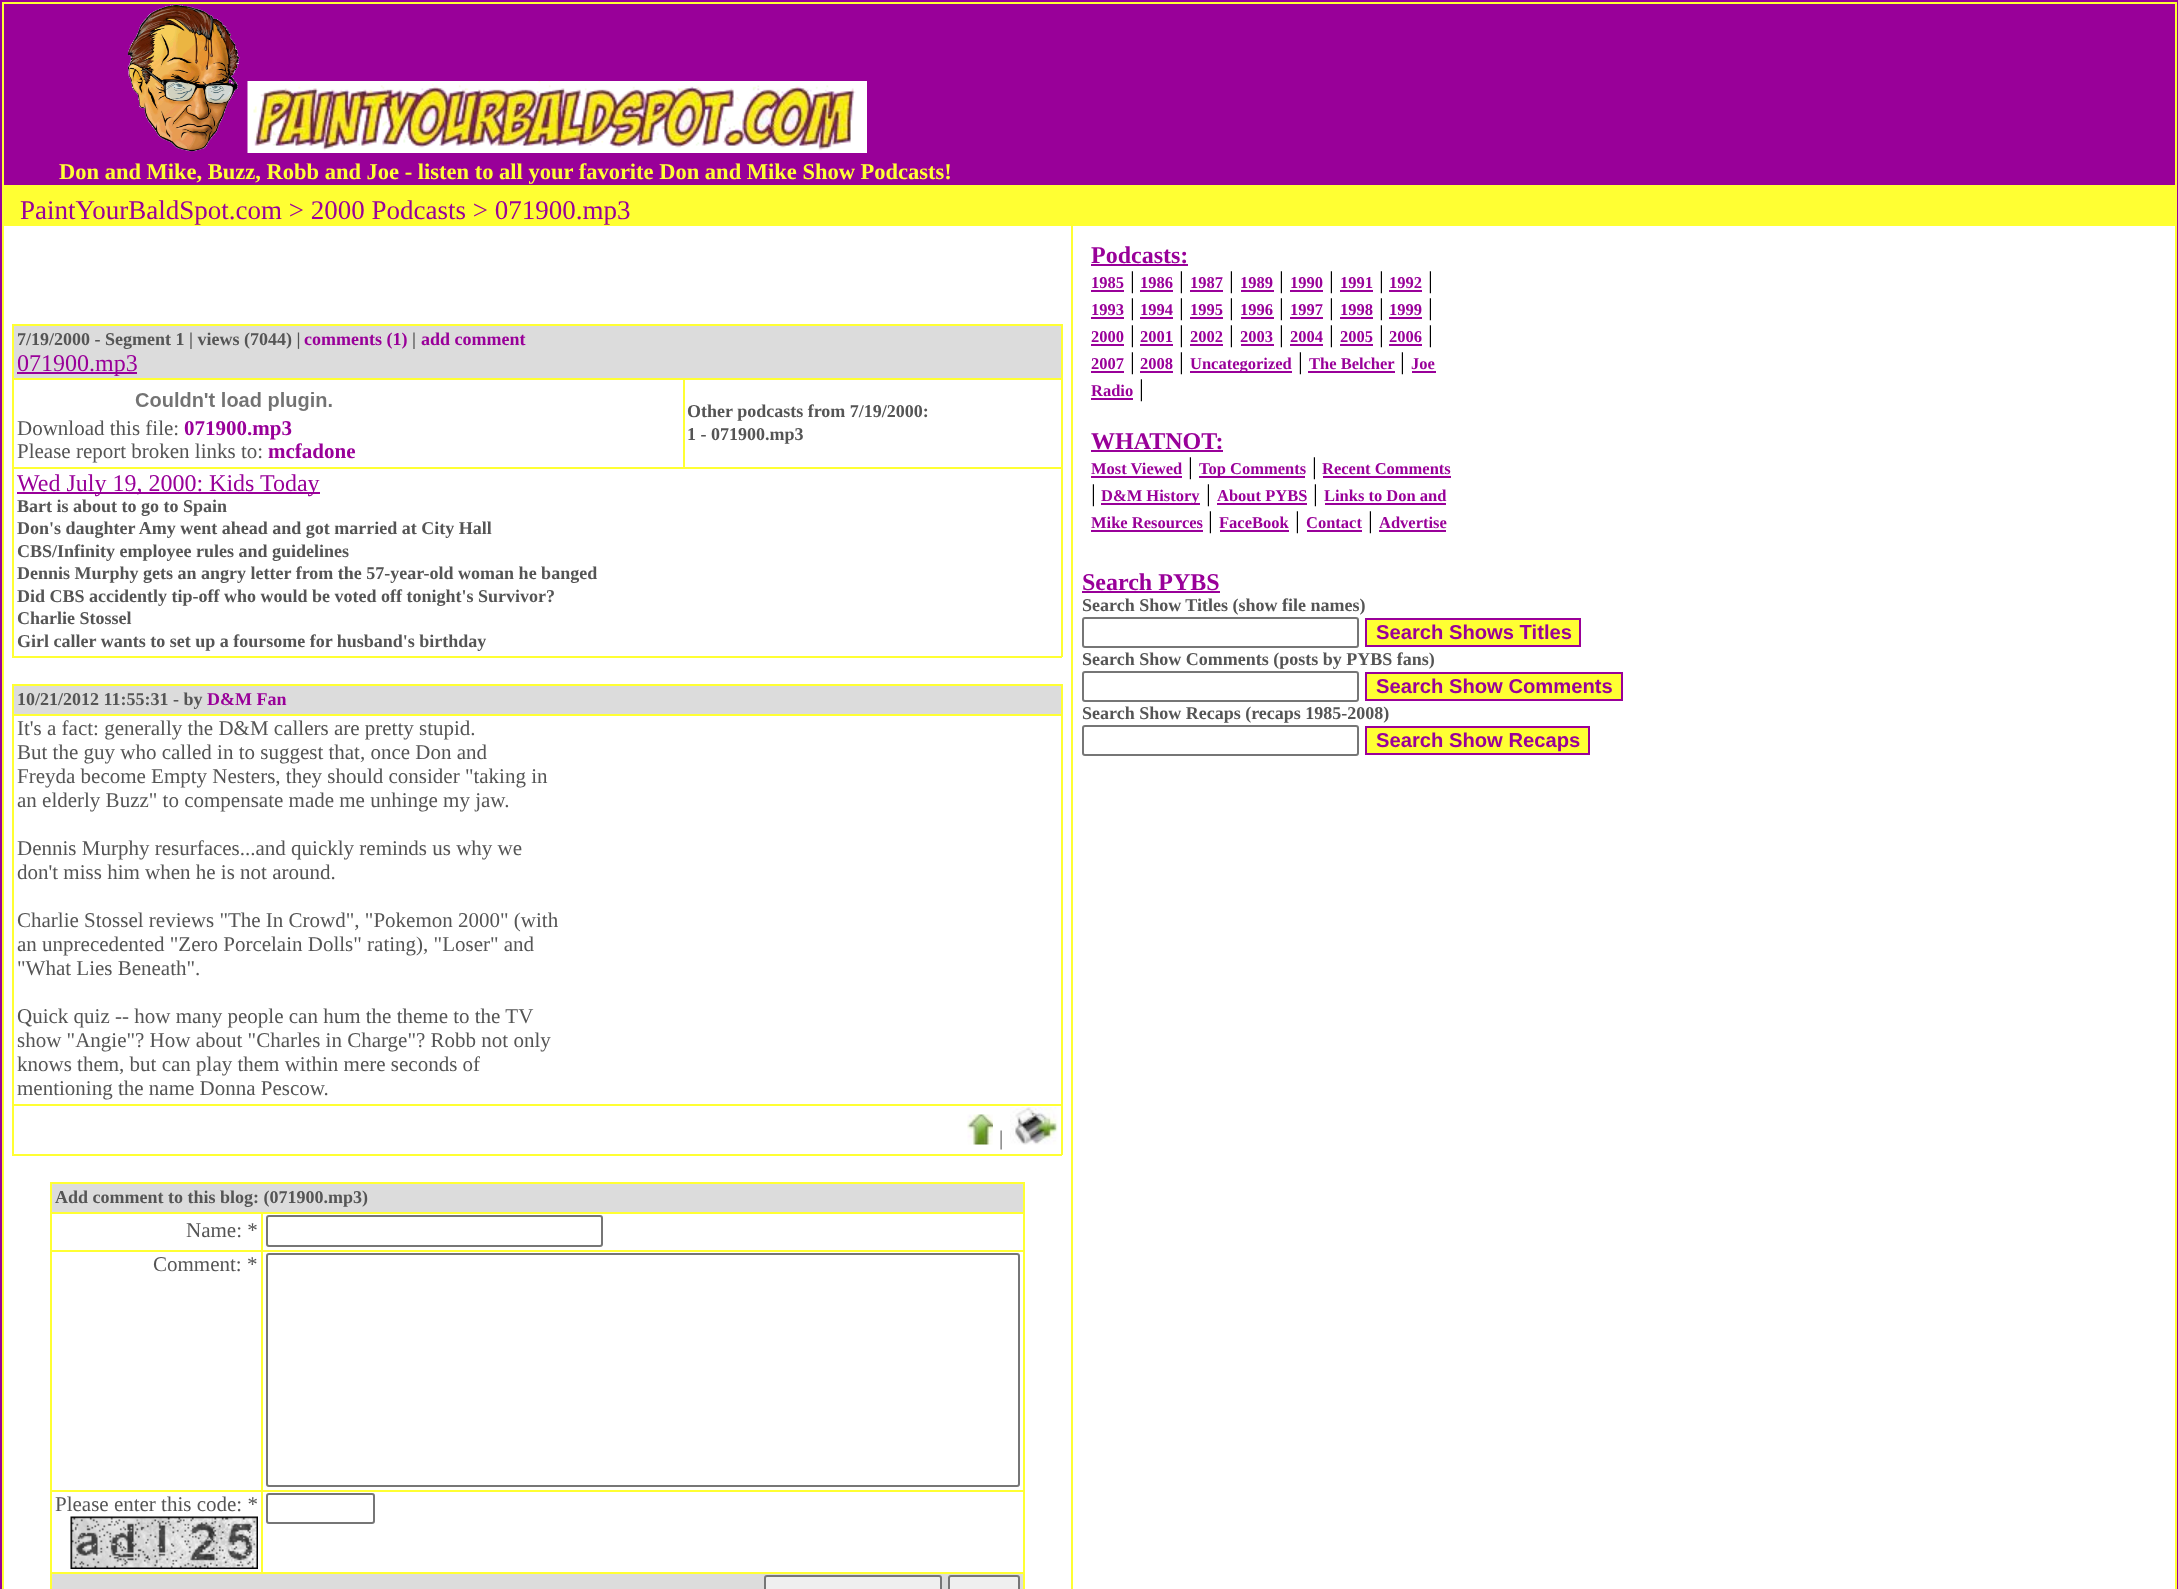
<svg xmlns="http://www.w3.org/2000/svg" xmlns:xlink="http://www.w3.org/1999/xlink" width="2178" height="1589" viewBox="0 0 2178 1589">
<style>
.cls-1{font:bold 22.5px Liberation Serif;fill:#ffff33}
.cls-2{font:27px Liberation Serif;fill:#990099}
.cls-3{font:bold 18px Liberation Serif;fill:#555555}
.cls-4{font:bold 18px Liberation Serif;fill:#990099}
.cls-5{font:24px Liberation Serif;fill:#990099}
.cls-6{font:21px Liberation Serif;fill:#555555}
.cls-7{font:bold 21px Liberation Serif;fill:#990099}
.cls-8{font:bold 24px Liberation Serif;fill:#990099}
.cls-9{font:bold 16.5px Liberation Serif;fill:#990099}
.cls-10{font:24px Liberation Serif;fill:#000000}
.cls-11{font:bold 20.2px Liberation Sans;fill:#990099}
</style>
<rect width="100%" height="100%" fill="#ffffff"/>
<rect fill="#990099" x="0" y="0" width="2178" height="2"/>
<rect fill="#990099" x="2177" y="0" width="1" height="1589"/>
<rect fill="#990099" x="0" y="0" width="2" height="1589"/>
<rect fill="#990099" x="4" y="4" width="2171" height="181"/>
<rect fill="#ffff33" x="2" y="2" width="2175" height="2"/>
<rect fill="#ffff33" x="2175" y="2" width="2" height="184"/>
<rect fill="#ffff33" x="2" y="185" width="2175" height="41"/>
<rect fill="#ffff33" x="2" y="2" width="2" height="184"/>
<image xlink:href="image0.png" x="127" y="4" width="113" height="148"/>
<image xlink:href="image1.png" x="247" y="81" width="620" height="72"/>
<rect fill="#ffff33" x="2175" y="224" width="2" height="1365"/>
<rect fill="#ffff33" x="2" y="224" width="2" height="1365"/>
<rect fill="#ffff33" x="12" y="324" width="1050" height="2"/>
<rect fill="#ffff33" x="1061" y="324" width="2" height="333"/>
<rect fill="#ffff33" x="12" y="656" width="1050" height="2"/>
<rect fill="#ffff33" x="12" y="324" width="2" height="333"/>
<rect fill="#dcdcdc" x="14" y="326" width="1047" height="52"/>
<rect fill="#990099" x="17" y="372" width="120" height="2"/>
<rect fill="#ffff33" x="683" y="378" width="379" height="2"/>
<rect fill="#ffff33" x="12" y="467" width="1050" height="2"/>
<rect fill="#ffff33" x="683" y="378" width="2" height="90"/>
<rect fill="#ffff33" x="12" y="378" width="672" height="2"/>
<image xlink:href="image2.png" x="135" y="392" width="197" height="19"/>
<rect fill="#990099" x="17" y="492" width="303" height="2"/>
<rect fill="#ffff33" x="12" y="684" width="1050" height="2"/>
<rect fill="#ffff33" x="1061" y="684" width="2" height="471"/>
<rect fill="#ffff33" x="12" y="1154" width="1050" height="2"/>
<rect fill="#ffff33" x="12" y="684" width="2" height="471"/>
<rect fill="#dcdcdc" x="14" y="686" width="1047" height="28"/>
<rect fill="#ffff33" x="12" y="714" width="1050" height="2"/>
<rect fill="#ffff33" x="12" y="1104" width="1050" height="2"/>
<image xlink:href="image3.png" x="967" y="1114" width="26" height="31"/>
<image xlink:href="image4.png" x="1010" y="1107" width="48" height="38"/>
<rect fill="#ffff33" x="50" y="1182" width="975" height="2"/>
<rect fill="#ffff33" x="1023" y="1182" width="2" height="407"/>
<rect fill="#ffff33" x="50" y="1182" width="2" height="407"/>
<rect fill="#dcdcdc" x="52" y="1184" width="971" height="28"/>
<rect fill="#ffff33" x="261" y="1212" width="764" height="2"/>
<rect fill="#ffff33" x="261" y="1250" width="764" height="2"/>
<rect fill="#ffff33" x="261" y="1490" width="764" height="2"/>
<rect fill="#ffff33" x="50" y="1572" width="975" height="2"/>
<rect fill="#ffff33" x="261" y="1490" width="2" height="84"/>
<rect fill="#ffff33" x="50" y="1490" width="213" height="2"/>
<rect fill="#ffff33" x="261" y="1250" width="2" height="241"/>
<rect fill="#ffff33" x="50" y="1250" width="213" height="2"/>
<rect fill="#ffff33" x="261" y="1212" width="2" height="39"/>
<rect fill="#ffff33" x="50" y="1212" width="213" height="2"/>
<rect fill="none" stroke="#767676" stroke-width="2" x="267" y="1216" width="335" height="30" rx="2"/>
<rect fill="none" stroke="#767676" stroke-width="2" x="267" y="1254" width="752" height="232" rx="2"/>
<image xlink:href="image5.png" x="70" y="1516" width="188" height="53"/>
<rect fill="none" stroke="#767676" stroke-width="2" x="267" y="1494" width="107" height="29" rx="2"/>
<rect fill="#dcdcdc" x="52" y="1574" width="971" height="15"/>
<rect fill="#efefef" stroke="#767676" stroke-width="2" x="765" y="1576" width="176" height="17" rx="2"/>
<rect fill="#efefef" stroke="#767676" stroke-width="2" x="949" y="1576" width="70" height="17" rx="2"/>
<rect fill="#ffff33" x="1071" y="224" width="2" height="1365"/>
<rect fill="#990099" x="1091" y="264" width="97" height="2"/>
<rect fill="#990099" x="1091" y="290" width="33" height="2"/>
<rect fill="#990099" x="1140" y="290" width="33" height="2"/>
<rect fill="#990099" x="1190" y="290" width="33" height="2"/>
<rect fill="#990099" x="1241" y="290" width="33" height="2"/>
<rect fill="#990099" x="1290" y="290" width="33" height="2"/>
<rect fill="#990099" x="1340" y="290" width="33" height="2"/>
<rect fill="#990099" x="1389" y="290" width="33" height="2"/>
<rect fill="#990099" x="1091" y="317" width="33" height="2"/>
<rect fill="#990099" x="1140" y="317" width="33" height="2"/>
<rect fill="#990099" x="1190" y="317" width="33" height="2"/>
<rect fill="#990099" x="1241" y="317" width="33" height="2"/>
<rect fill="#990099" x="1290" y="317" width="33" height="2"/>
<rect fill="#990099" x="1340" y="317" width="33" height="2"/>
<rect fill="#990099" x="1389" y="317" width="33" height="2"/>
<rect fill="#990099" x="1091" y="344" width="33" height="2"/>
<rect fill="#990099" x="1140" y="344" width="33" height="2"/>
<rect fill="#990099" x="1190" y="344" width="33" height="2"/>
<rect fill="#990099" x="1241" y="344" width="33" height="2"/>
<rect fill="#990099" x="1290" y="344" width="33" height="2"/>
<rect fill="#990099" x="1340" y="344" width="33" height="2"/>
<rect fill="#990099" x="1389" y="344" width="33" height="2"/>
<rect fill="#990099" x="1091" y="371" width="33" height="2"/>
<rect fill="#990099" x="1140" y="371" width="33" height="2"/>
<rect fill="#990099" x="1190" y="371" width="102" height="2"/>
<rect fill="#990099" x="1308" y="371" width="87" height="2"/>
<rect fill="#990099" x="1412" y="371" width="24" height="2"/>
<rect fill="#990099" x="1091" y="398" width="42" height="2"/>
<rect fill="#990099" x="1091" y="450" width="132" height="2"/>
<rect fill="#990099" x="1091" y="476" width="91" height="2"/>
<rect fill="#990099" x="1199" y="476" width="106" height="2"/>
<rect fill="#990099" x="1323" y="476" width="128" height="2"/>
<rect fill="#990099" x="1101" y="503" width="99" height="2"/>
<rect fill="#990099" x="1217" y="503" width="90" height="2"/>
<rect fill="#990099" x="1325" y="503" width="121" height="2"/>
<rect fill="#990099" x="1091" y="530" width="112" height="2"/>
<rect fill="#990099" x="1220" y="530" width="69" height="2"/>
<rect fill="#990099" x="1307" y="530" width="55" height="2"/>
<rect fill="#990099" x="1379" y="530" width="67" height="2"/>
<rect fill="#990099" x="1082" y="591" width="138" height="2"/>
<rect fill="none" stroke="#767676" stroke-width="2" x="1083" y="618" width="275" height="29" rx="2"/>
<rect fill="#ffff33" stroke="#990099" stroke-width="2" x="1366" y="619" width="214" height="27"/>
<rect fill="none" stroke="#767676" stroke-width="2" x="1083" y="672" width="275" height="29" rx="2"/>
<rect fill="#ffff33" stroke="#990099" stroke-width="2" x="1366" y="673" width="256" height="27"/>
<rect fill="none" stroke="#767676" stroke-width="2" x="1083" y="726" width="275" height="29" rx="2"/>
<rect fill="#ffff33" stroke="#990099" stroke-width="2" x="1366" y="727" width="223" height="27"/>
<text class="cls-1" x="59" y="179">Don and Mike, Buzz, Robb and Joe - listen to all your favorite Don and Mike Show Podcasts!</text>
<text class="cls-2" x="20" y="219">PaintYourBaldSpot.com &gt; 2000 Podcasts &gt; 071900.mp3</text>
<text class="cls-3" x="17" y="345">7/19/2000 - Segment 1 | views (7044) |</text>
<text class="cls-4" x="304" y="345">comments (1)</text>
<text class="cls-3" x="412" y="345">|</text>
<text class="cls-4" x="421" y="345">add comment</text>
<text class="cls-5" x="17" y="371">071900.mp3</text>
<text class="cls-6" x="17" y="435">Download this file:</text>
<text class="cls-7" x="184" y="435">071900.mp3</text>
<text class="cls-6" x="17" y="458">Please report broken links to:</text>
<text class="cls-7" x="268" y="458">mcfadone</text>
<text class="cls-3"><tspan x="687" y="417">Other podcasts from 7/19/2000:</tspan><tspan x="687" y="440">1 - 071900.mp3</tspan></text>
<text class="cls-5" x="17" y="491">Wed July 19, 2000: Kids Today</text>
<text class="cls-3"><tspan x="17" y="512">Bart is about to go to Spain</tspan><tspan x="17" y="534">Don's daughter Amy went ahead and got married at City Hall</tspan><tspan x="17" y="557">CBS/Infinity employee rules and guidelines</tspan><tspan x="17" y="579">Dennis Murphy gets an angry letter from the 57-year-old woman he banged</tspan><tspan x="17" y="602">Did CBS accidently tip-off who would be voted off tonight's Survivor?</tspan><tspan x="17" y="624">Charlie Stossel</tspan><tspan x="17" y="647">Girl caller wants to set up a foursome for husband's birthday</tspan></text>
<text class="cls-3" x="17" y="705">10/21/2012 11:55:31 - by</text>
<text class="cls-4" x="207" y="705">D&amp;M Fan</text>
<text class="cls-6"><tspan x="17" y="735">It's a fact: generally the D&amp;M callers are pretty stupid.</tspan><tspan x="17" y="759">But the guy who called in to suggest that, once Don and</tspan><tspan x="17" y="783">Freyda become Empty Nesters, they should consider "taking in</tspan><tspan x="17" y="807">an elderly Buzz" to compensate made me unhinge my jaw.</tspan></text>
<text class="cls-6"><tspan x="17" y="855">Dennis Murphy resurfaces...and quickly reminds us why we</tspan><tspan x="17" y="879">don't miss him when he is not around.</tspan></text>
<text class="cls-6"><tspan x="17" y="927">Charlie Stossel reviews "The In Crowd", "Pokemon 2000" (with</tspan><tspan x="17" y="951">an unprecedented "Zero Porcelain Dolls" rating), "Loser" and</tspan><tspan x="17" y="975">"What Lies Beneath".</tspan></text>
<text class="cls-6"><tspan x="17" y="1023">Quick quiz -- how many people can hum the theme to the TV</tspan><tspan x="17" y="1047">show "Angie"? How about "Charles in Charge"? Robb not only</tspan><tspan x="17" y="1071">knows them, but can play them within mere seconds of</tspan><tspan x="17" y="1095">mentioning the name Donna Pescow.</tspan></text>
<text class="cls-6" x="999" y="1145">|</text>
<text class="cls-3" x="55" y="1203">Add comment to this blog: (071900.mp3)</text>
<text class="cls-6" x="186" y="1237">Name: *</text>
<text class="cls-6" x="153" y="1271">Comment: *</text>
<text class="cls-6" x="55" y="1511">Please enter this code: *</text>
<text class="cls-8" x="1091" y="263">Podcasts:</text>
<text class="cls-9" x="1091" y="288">1985</text>
<text class="cls-10" x="1130" y="288">|</text>
<text class="cls-9" x="1140" y="288">1986</text>
<text class="cls-10" x="1179" y="288">|</text>
<text class="cls-9" x="1190" y="288">1987</text>
<text class="cls-10" x="1229" y="288">|</text>
<text class="cls-9" x="1240" y="288">1989</text>
<text class="cls-10" x="1279" y="288">|</text>
<text class="cls-9" x="1290" y="288">1990</text>
<text class="cls-10" x="1329" y="288">|</text>
<text class="cls-9" x="1340" y="288">1991</text>
<text class="cls-10" x="1379" y="288">|</text>
<text class="cls-9" x="1389" y="288">1992</text>
<text class="cls-10" x="1428" y="288">|</text>
<text class="cls-9" x="1091" y="315">1993</text>
<text class="cls-10" x="1130" y="315">|</text>
<text class="cls-9" x="1140" y="315">1994</text>
<text class="cls-10" x="1179" y="315">|</text>
<text class="cls-9" x="1190" y="315">1995</text>
<text class="cls-10" x="1229" y="315">|</text>
<text class="cls-9" x="1240" y="315">1996</text>
<text class="cls-10" x="1279" y="315">|</text>
<text class="cls-9" x="1290" y="315">1997</text>
<text class="cls-10" x="1329" y="315">|</text>
<text class="cls-9" x="1340" y="315">1998</text>
<text class="cls-10" x="1379" y="315">|</text>
<text class="cls-9" x="1389" y="315">1999</text>
<text class="cls-10" x="1428" y="315">|</text>
<text class="cls-9" x="1091" y="342">2000</text>
<text class="cls-10" x="1130" y="342">|</text>
<text class="cls-9" x="1140" y="342">2001</text>
<text class="cls-10" x="1179" y="342">|</text>
<text class="cls-9" x="1190" y="342">2002</text>
<text class="cls-10" x="1229" y="342">|</text>
<text class="cls-9" x="1240" y="342">2003</text>
<text class="cls-10" x="1279" y="342">|</text>
<text class="cls-9" x="1290" y="342">2004</text>
<text class="cls-10" x="1329" y="342">|</text>
<text class="cls-9" x="1340" y="342">2005</text>
<text class="cls-10" x="1379" y="342">|</text>
<text class="cls-9" x="1389" y="342">2006</text>
<text class="cls-10" x="1428" y="342">|</text>
<text class="cls-9" x="1091" y="369">2007</text>
<text class="cls-10" x="1130" y="369">|</text>
<text class="cls-9" x="1140" y="369">2008</text>
<text class="cls-10" x="1179" y="369">|</text>
<text class="cls-9" x="1190" y="369">Uncategorized</text>
<text class="cls-10" x="1298" y="369">|</text>
<text class="cls-9" x="1309" y="369">The Belcher</text>
<text class="cls-10" x="1400" y="369">|</text>
<text class="cls-9" x="1411" y="369">Joe</text>
<text class="cls-9" x="1091" y="396">Radio</text>
<text class="cls-10" x="1139" y="396">|</text>
<text class="cls-8" x="1091" y="449">WHATNOT:</text>
<text class="cls-9" x="1091" y="474">Most Viewed</text>
<text class="cls-10" x="1188" y="474">|</text>
<text class="cls-9" x="1199" y="474">Top Comments</text>
<text class="cls-10" x="1312" y="474">|</text>
<text class="cls-9" x="1322" y="474">Recent Comments</text>
<text class="cls-10" x="1091" y="501">|</text>
<text class="cls-9" x="1101" y="501">D&amp;M History</text>
<text class="cls-10" x="1206" y="501">|</text>
<text class="cls-9" x="1217" y="501">About PYBS</text>
<text class="cls-10" x="1313" y="501">|</text>
<text class="cls-9" x="1324" y="501">Links to Don and</text>
<text class="cls-9" x="1091" y="528">Mike Resources</text>
<text class="cls-10" x="1208" y="528">|</text>
<text class="cls-9" x="1219" y="528">FaceBook</text>
<text class="cls-10" x="1295" y="528">|</text>
<text class="cls-9" x="1306" y="528">Contact</text>
<text class="cls-10" x="1368" y="528">|</text>
<text class="cls-9" x="1379" y="528">Advertise</text>
<text class="cls-8" x="1082" y="590">Search PYBS</text>
<text class="cls-3" x="1082" y="611">Search Show Titles (show file names)</text>
<text class="cls-11" x="1376" y="639">Search Shows Titles</text>
<text class="cls-3" x="1082" y="665">Search Show Comments (posts by PYBS fans)</text>
<text class="cls-11" x="1376" y="693">Search Show Comments</text>
<text class="cls-3" x="1082" y="719">Search Show Recaps (recaps 1985-2008)</text>
<text class="cls-11" x="1376" y="747">Search Show Recaps</text>
</svg>
